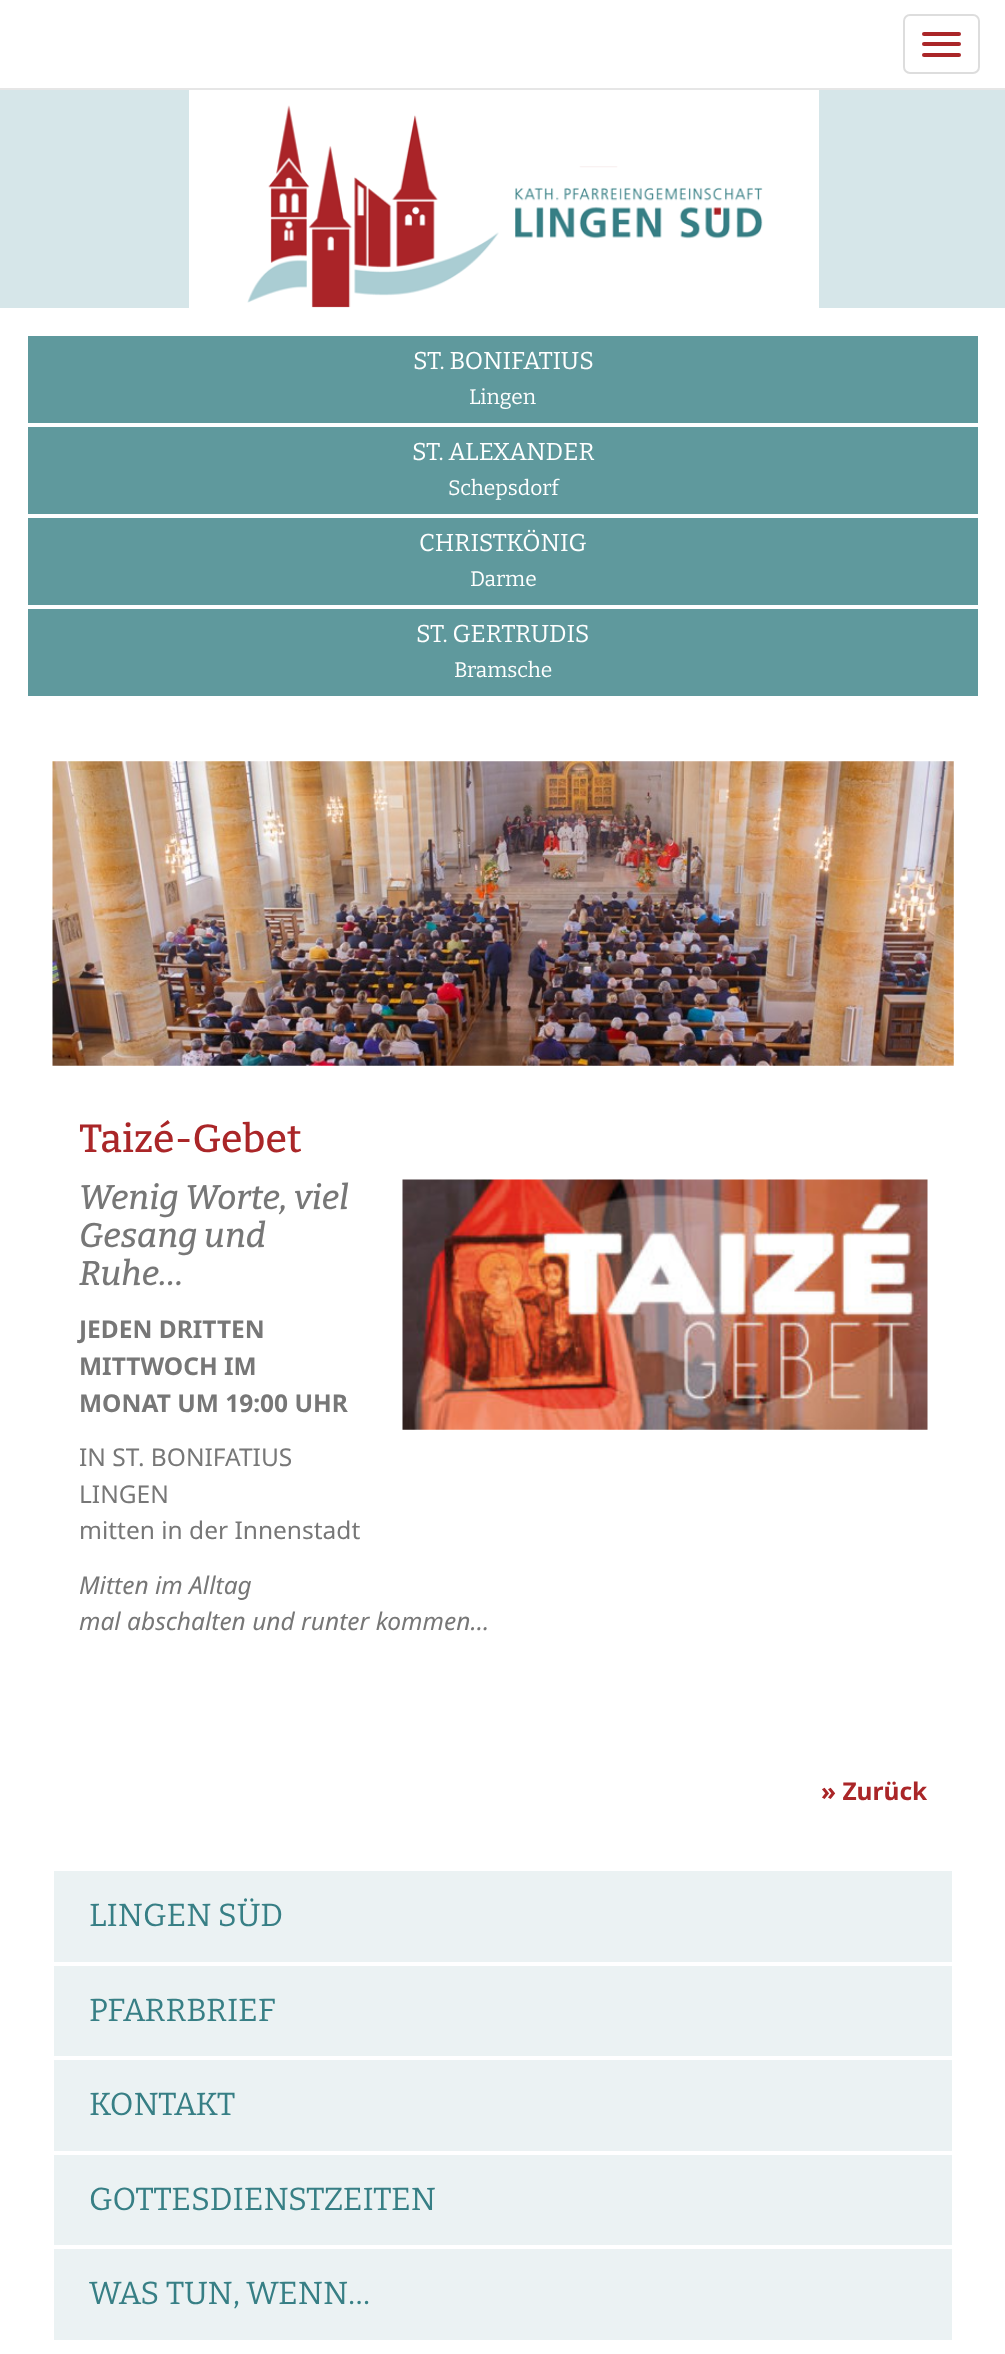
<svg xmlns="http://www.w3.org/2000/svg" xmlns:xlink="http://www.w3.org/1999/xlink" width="1005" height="2354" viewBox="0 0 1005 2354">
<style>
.cls-1{font:24.5px Bitter;fill:#ffffff}
.cls-2{font:21px Bitter;fill:#ffffff}
.cls-3{font:500 39.25px Bitter;fill:#aa2628}
.cls-4{font:italic 500 34.25px Bitter;fill:#777777}
.cls-5{font:bold 24.5px Noto Sans;fill:#777777}
.cls-6{font:24.5px Noto Sans;fill:#777777}
.cls-7{font:italic 24.5px Noto Sans;fill:#777777}
.cls-8{font:bold 24.5px Noto Sans;fill:#aa2628}
.cls-9{font:31.8px Bitter;fill:#377f85}
</style>
<rect width="100%" height="100%" fill="#d6e6e9"/>
<rect fill="#e6e6e6" x="0" y="88" width="1005" height="2"/>
<rect fill="#ffffff" x="0" y="0" width="1005" height="88"/>
<rect fill="none" stroke="#dddddd" stroke-width="2" x="904" y="15" width="75" height="58" rx="6"/>
<rect fill="#aa2628" x="922" y="32" width="39" height="4" rx="2"/>
<rect fill="#aa2628" x="922" y="42" width="39" height="4" rx="2"/>
<rect fill="#aa2628" x="922" y="53" width="39" height="4" rx="2"/>
<rect fill="#ffffff" x="189" y="90" width="630" height="218"/>
<image xlink:href="image0.png" x="247" y="105" width="252" height="203"/>
<image xlink:href="image1.png" x="515" y="166" width="248" height="73"/>
<rect fill="#ffffff" x="0" y="308" width="1005" height="2046"/>
<rect fill="#5f999d" x="28" y="336" width="950" height="87"/>
<rect fill="#5f999d" x="28" y="427" width="950" height="87"/>
<rect fill="#5f999d" x="28" y="518" width="950" height="87"/>
<rect fill="#5f999d" x="28" y="609" width="950" height="87"/>
<image xlink:href="image2.png" x="52" y="761" width="902" height="305"/>
<image xlink:href="image3.png" x="402" y="1179" width="526" height="251"/>
<rect fill="#ebf2f3" x="54" y="1871" width="898" height="469"/>
<rect fill="#ffffff" x="54" y="1962" width="898" height="4"/>
<rect fill="#ffffff" x="54" y="2056" width="898" height="4"/>
<rect fill="#ffffff" x="54" y="2151" width="898" height="4"/>
<rect fill="#ffffff" x="54" y="2245" width="898" height="4"/>
<text class="cls-1" x="413" y="369">ST. BONIFATIUS</text>
<text class="cls-2" x="469" y="404">Lingen</text>
<text class="cls-1" x="412" y="460">ST. ALEXANDER</text>
<text class="cls-2" x="448" y="495">Schepsdorf</text>
<text class="cls-1" x="419" y="551">CHRISTKÖNIG</text>
<text class="cls-2" x="470" y="586">Darme</text>
<text class="cls-1" x="416" y="642">ST. GERTRUDIS</text>
<text class="cls-2" x="454" y="677">Bramsche</text>
<text class="cls-3" x="79" y="1152">Taizé-Gebet</text>
<text class="cls-4"><tspan x="79" y="1209">Wenig Worte, viel</tspan><tspan x="79" y="1247">Gesang und</tspan><tspan x="79" y="1285">Ruhe…</tspan></text>
<text class="cls-5"><tspan x="79" y="1338">JEDEN DRITTEN</tspan><tspan x="79" y="1375">MITTWOCH IM</tspan><tspan x="79" y="1412">MONAT UM 19:00 UHR</tspan></text>
<text class="cls-6"><tspan x="79" y="1466">IN ST. BONIFATIUS</tspan><tspan x="79" y="1503">LINGEN</tspan><tspan x="79" y="1539">mitten in der Innenstadt</tspan></text>
<text class="cls-7"><tspan x="79" y="1594">Mitten im Alltag</tspan><tspan x="79" y="1630">mal abschalten und runter kommen…</tspan></text>
<text class="cls-8" x="821" y="1800">» Zurück</text>
<text class="cls-9" x="89" y="1926">LINGEN SÜD</text>
<text class="cls-9" x="89" y="2021">PFARRBRIEF</text>
<text class="cls-9" x="89" y="2115">KONTAKT</text>
<text class="cls-9" x="89" y="2210">GOTTESDIENSTZEITEN</text>
<text class="cls-9" x="89" y="2304">WAS TUN, WENN…</text>
</svg>
